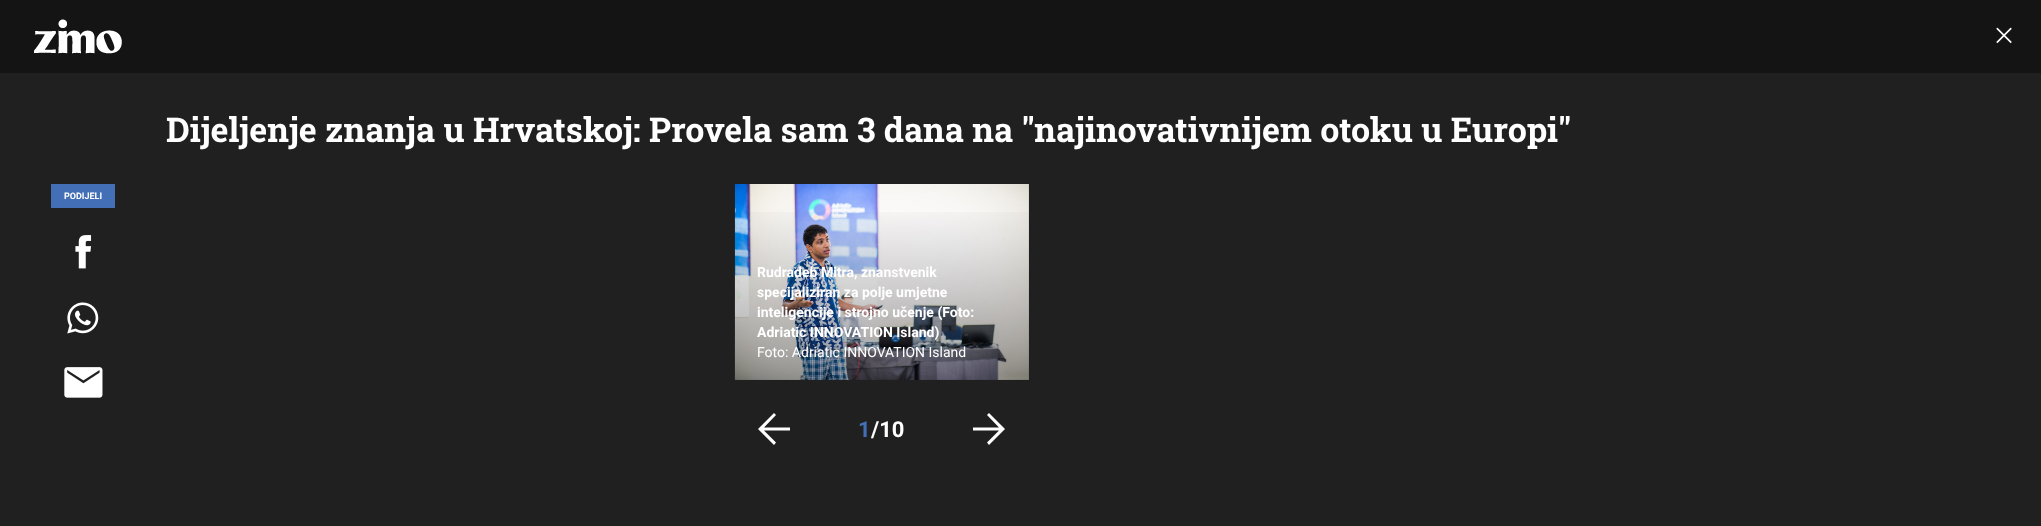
<svg xmlns="http://www.w3.org/2000/svg" xmlns:xlink="http://www.w3.org/1999/xlink" width="2041" height="526" viewBox="0 0 2041 526">
<style>
.cls-1{font:bold 34px Roboto Slab;fill:#ffffff}
.cls-2{font:bold 9px Roboto;fill:#ffffff}
.cls-3{font:bold 14px Roboto;fill:#ffffff}
.cls-4{font:14px Roboto;fill:#ffffff}
.cls-5{font:bold 22px Roboto;fill:#426fb5}
.cls-6{font:bold 22px Roboto;fill:#ffffff}
</style>
<defs>
<linearGradient id="g1" gradientUnits="userSpaceOnUse" x1="882" y1="380" x2="882" y2="202"><stop offset="0" stop-color="#141414" stop-opacity="0.4"/><stop offset="1" stop-color="#141414" stop-opacity="0"/></linearGradient>
</defs>
<rect width="100%" height="100%" fill="#202020"/>
<rect fill="#141414" x="0" y="0" width="2041" height="73"/>
<image xlink:href="image0.png" x="34" y="19" width="88" height="35"/>
<image xlink:href="image1.png" x="1996" y="27" width="16" height="17"/>
<rect fill="#426fb5" x="51" y="184" width="64" height="24"/>
<image xlink:href="image2.png" x="75" y="235" width="17" height="34"/>
<image xlink:href="image3.png" x="67" y="302" width="32" height="32"/>
<image xlink:href="image4.png" x="64" y="367" width="39" height="31"/>
<image xlink:href="image5.png" x="734" y="184" width="295" height="196"/>
<rect fill="url(#g1)" x="735" y="212" width="294" height="168"/>
<path fill="#ffffff" d="M774 445L776 442.5L764 430.5H790V427.5H764L776 415L774 413L758 429Z"/>
<path fill="#ffffff" d="M989 445L987 442.5L999 430.5H973V427.5H999L987 415L989 413L1005 429Z"/>
<text class="cls-1" x="166" y="142">Dijeljenje znanja u Hrvatskoj: Provela sam 3 dana na "najinovativnijem otoku u Europi"</text>
<text class="cls-2" x="64" y="199">PODIJELI</text>
<text class="cls-3"><tspan x="757" y="277">Rudradeb Mitra, znanstvenik</tspan><tspan x="757" y="297">specijaliziran za polje umjetne</tspan><tspan x="757" y="317">inteligencije i strojno učenje (Foto:</tspan><tspan x="757" y="337">Adriatic INNOVATION Island)</tspan></text>
<text class="cls-4" x="757" y="357">Foto: Adriatic INNOVATION Island</text>
<text class="cls-5" x="858" y="437">1</text>
<text class="cls-6" x="871" y="437">/10</text>
</svg>
